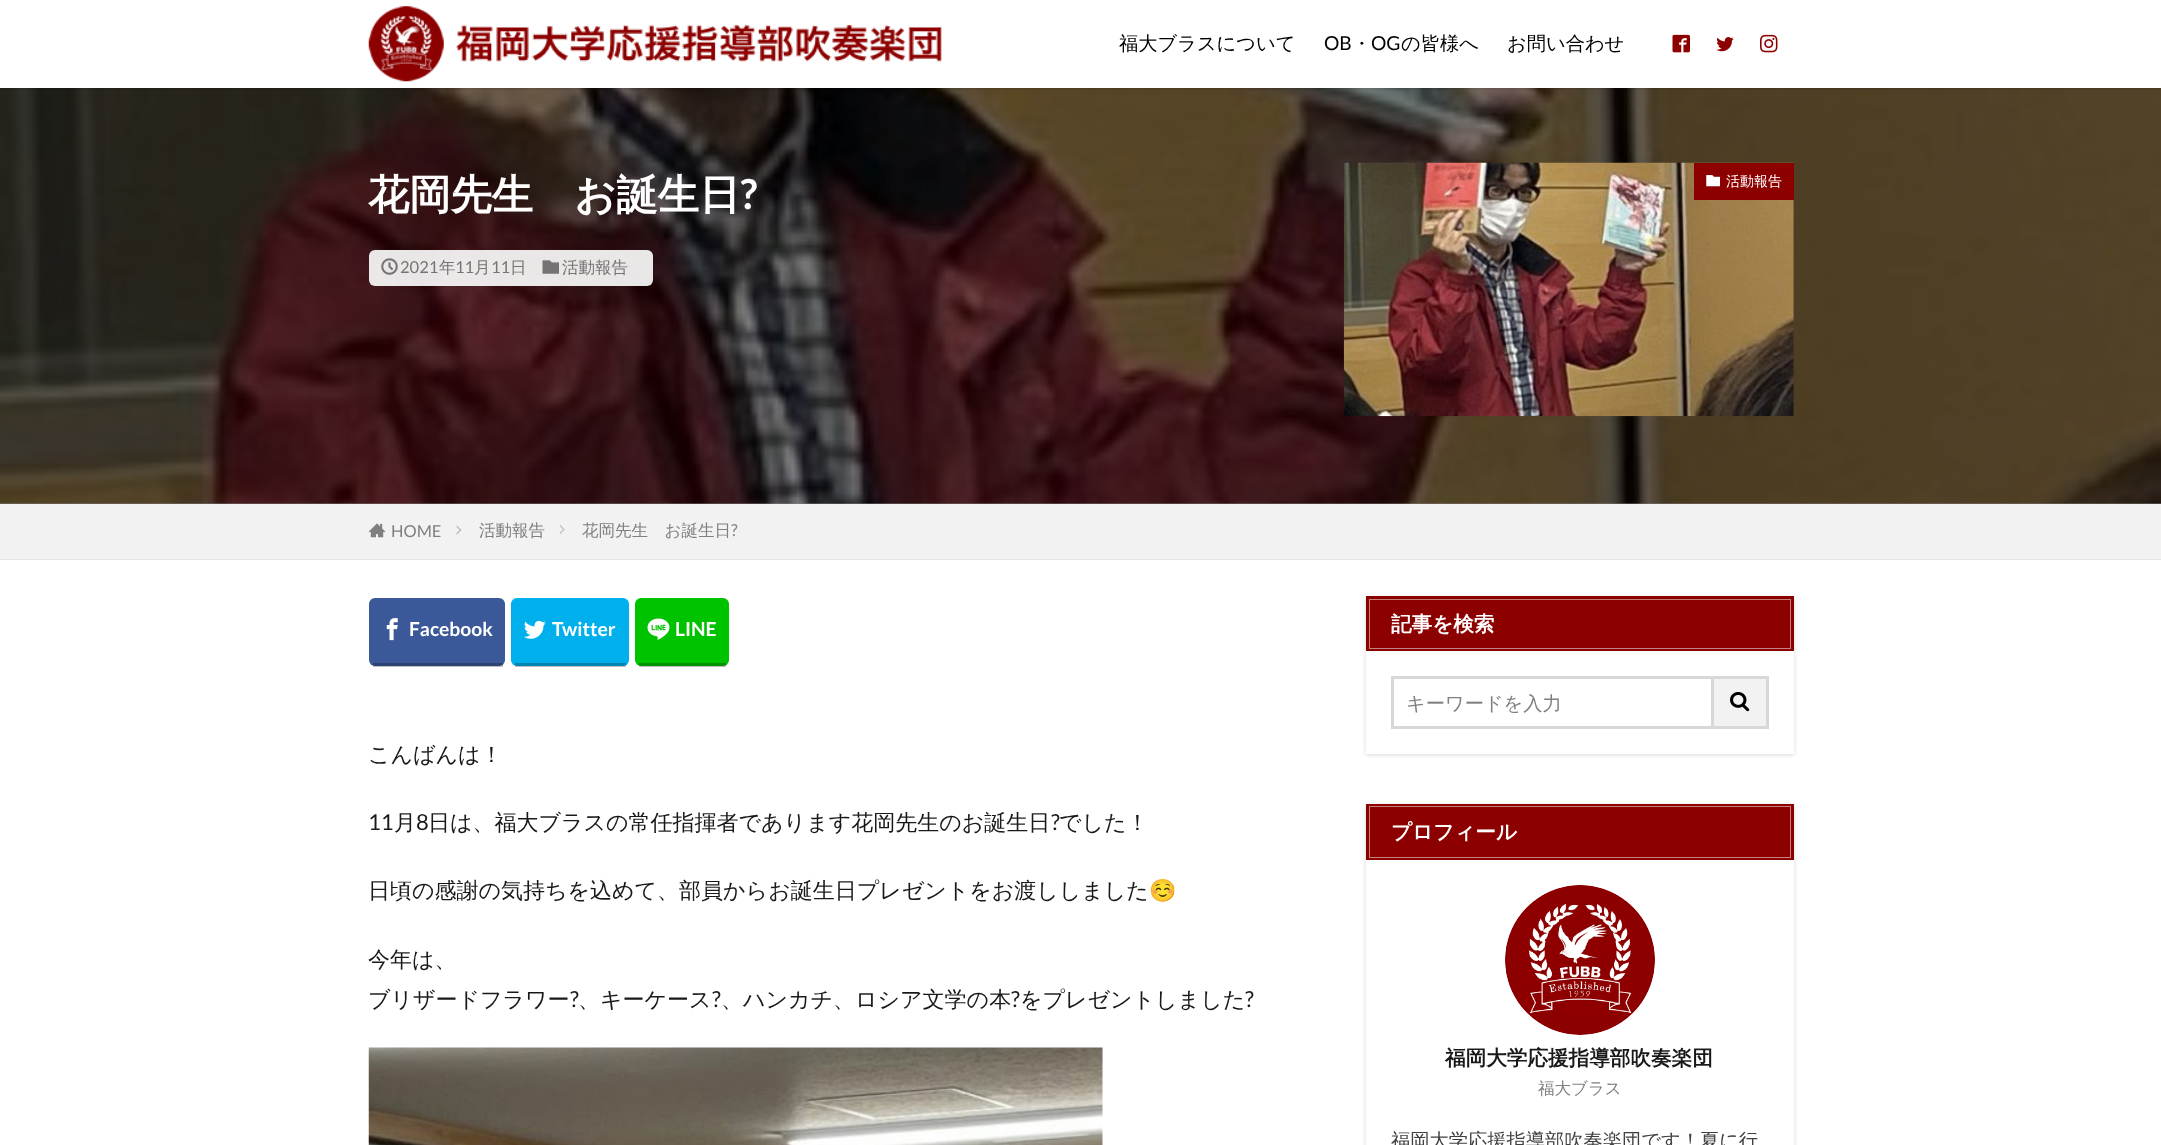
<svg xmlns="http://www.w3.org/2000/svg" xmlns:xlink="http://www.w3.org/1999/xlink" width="2161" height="1145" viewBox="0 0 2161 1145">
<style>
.cls-1{font:500 19.25px WenQuanYi Zen Hei;fill:#000000}
.cls-2{font:19.25px Lato;fill:#000000}
.cls-3{font:bold 41.25px WenQuanYi Zen Hei;fill:#ffffff}
.cls-4{font:bold 41.25px Lato;fill:#ffffff}
.cls-5{font:16.5px Lato;fill:#757373}
.cls-6{font:500 16.5px WenQuanYi Zen Hei;fill:#757373}
.cls-7{font:500 14px WenQuanYi Zen Hei;fill:#ffffff}
.cls-8{font:16.5px Lato;fill:#7f7f7f}
.cls-9{font:500 16.5px WenQuanYi Zen Hei;fill:#7f7f7f}
.cls-10{font:bold 19.25px Lato;fill:#ffffff}
.cls-11{font:500 22px WenQuanYi Zen Hei;fill:#191919}
.cls-12{font:22px Lato;fill:#191919}
.cls-13{font:22px Noto Color Emoji;fill:#191919}
.cls-14{font:bold 20.6px WenQuanYi Zen Hei;fill:#ffffff}
.cls-15{font:500 19.25px WenQuanYi Zen Hei;fill:#7f7f7f}
.cls-16{font:bold 20.6px WenQuanYi Zen Hei;fill:#191919}
.cls-17{font:500 19.25px WenQuanYi Zen Hei;fill:#404040}
</style>
<rect width="100%" height="100%" fill="#ffffff"/>
<rect fill="#808080" x="0" y="503" width="2161" height="1"/>
<image xlink:href="image4.png" x="0" y="88" width="2161" height="416"/>
<rect fill="#000000" fill-opacity="0.15" filter="blur(1px)" x="0" y="1" width="2161" height="88"/>
<rect fill="#ffffff" x="0" y="0" width="2161" height="88"/>
<image xlink:href="image0.png" x="368" y="6" width="574" height="76"/>
<image xlink:href="image1.png" x="1672" y="34" width="18" height="19"/>
<image xlink:href="image2.png" x="1716" y="37" width="18" height="15"/>
<image xlink:href="image3.png" x="1760" y="34" width="18" height="19"/>
<rect fill="#ffffff" fill-opacity="0.9" x="369" y="250" width="284" height="36" rx="6"/>
<image xlink:href="image5.png" x="381" y="258" width="17" height="17"/>
<image xlink:href="image6.png" x="542" y="260" width="17" height="14"/>
<image xlink:href="image7.png" x="1343" y="162" width="451" height="255"/>
<rect fill="#8d0000" x="1694" y="163" width="100" height="37"/>
<image xlink:href="image8.png" x="1706" y="175" width="14" height="12"/>
<rect fill="#f2f2f2" x="0" y="504" width="2161" height="55"/>
<rect fill="#e6e6e6" x="0" y="559" width="2161" height="1"/>
<image xlink:href="image9.png" x="368" y="523" width="18" height="15"/>
<path fill="#bfbfbf" d="M457 525.5L461.5 530L460.5 531L456 526.5Z"/>
<path fill="#bfbfbf" d="M460.5 529L461.5 530L457 534.5L456 533.5Z"/>
<path fill="#bfbfbf" d="M560.5 525L564.5 529.5L564 530.5L559.5 526Z"/>
<path fill="#bfbfbf" d="M564 528.5L564.5 529.5L560.5 534L559.5 533Z"/>
<rect fill="#3b5998" x="369" y="598" width="136" height="68" rx="6"/>
<rect fill="#000000" fill-opacity="0.25" x="373" y="663" width="130" height="4"/>
<image xlink:href="image10.png" x="386" y="618" width="12" height="23"/>
<rect fill="#00b0ed" x="511" y="598" width="118" height="68" rx="6"/>
<rect fill="#000000" fill-opacity="0.25" x="515" y="663" width="111" height="4"/>
<image xlink:href="image11.png" x="524" y="620" width="22" height="19"/>
<rect fill="#00c300" x="635" y="598" width="94" height="68" rx="6"/>
<rect fill="#000000" fill-opacity="0.25" x="639" y="663" width="87" height="4"/>
<image xlink:href="image12.png" x="647" y="618" width="23" height="22"/>
<image xlink:href="image13.png" x="368" y="1047" width="735" height="98"/>
<rect fill="#000000" fill-opacity="0.15" filter="blur(2px)" x="1366" y="598" width="428" height="157"/>
<rect fill="#ffffff" x="1366" y="651" width="428" height="103"/>
<rect fill="#8d0000" x="1366" y="596" width="428" height="55"/>
<rect fill="none" stroke="#c68080" x="1369.5" y="599.5" width="421" height="49"/>
<rect fill="none" stroke="#d8d8d8" stroke-width="3" x="1392.5" y="677.5" width="320" height="50"/>
<rect fill="#f2f2f2" x="1714" y="679" width="52" height="47"/>
<rect fill="#d8d8d8" x="1714" y="676" width="55" height="3"/>
<rect fill="#d8d8d8" x="1766" y="676" width="3" height="53"/>
<rect fill="#d8d8d8" x="1714" y="726" width="55" height="3"/>
<image xlink:href="image14.png" x="1730" y="692" width="20" height="20"/>
<rect fill="#000000" fill-opacity="0.15" filter="blur(2px)" x="1366" y="805" width="428" height="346"/>
<rect fill="#ffffff" x="1366" y="860" width="428" height="285"/>
<rect fill="#8d0000" x="1366" y="804" width="428" height="56"/>
<rect fill="none" stroke="#c68080" x="1369.5" y="806.5" width="421" height="51"/>
<image xlink:href="image15.png" x="1505" y="885" width="150" height="150"/>
<text class="cls-1" x="1119" y="50">福大ブラスについて</text>
<text class="cls-2" x="1324" y="50">OB</text>
<text class="cls-1" x="1352" y="50">・</text>
<text class="cls-2" x="1371" y="50">OG</text>
<text class="cls-1" x="1401" y="50">の皆様へ</text>
<text class="cls-1" x="1507" y="50">お問い合わせ</text>
<text class="cls-3" x="368" y="209">花岡先生　お誕生日</text>
<text class="cls-4" x="740" y="209">?</text>
<text class="cls-5" x="400" y="273">2021</text>
<text class="cls-6" x="439" y="273">年</text>
<text class="cls-5" x="455" y="273">11</text>
<text class="cls-6" x="474" y="273">月</text>
<text class="cls-5" x="491" y="273">11</text>
<text class="cls-6" x="510" y="273">日</text>
<text class="cls-6" x="562" y="273">活動報告</text>
<text class="cls-7" x="1726" y="186">活動報告</text>
<text class="cls-8" x="391" y="537">HOME</text>
<text class="cls-9" x="479" y="536">活動報告</text>
<text class="cls-9" x="582" y="536">花岡先生　お誕生日</text>
<text class="cls-8" x="731" y="536">?</text>
<text class="cls-10" x="409" y="636">Facebook</text>
<text class="cls-10" x="552" y="636">Twitter</text>
<text class="cls-10" x="675" y="636">LINE</text>
<text class="cls-11" x="368" y="762">こんばんは！</text>
<text class="cls-12" x="368" y="830">11</text>
<text class="cls-11" x="394" y="830">月</text>
<text class="cls-12" x="416" y="830">8</text>
<text class="cls-11" x="428" y="830">日は、福大ブラスの常任指揮者であります花岡先生のお誕生日</text>
<text class="cls-12" x="1051" y="830">?</text>
<text class="cls-11" x="1059" y="830">でした！</text>
<text class="cls-11" x="368" y="898">日頃の感謝の気持ちを込めて、部員からお誕生日プレゼントをお渡ししました</text>
<text class="cls-13" x="1149" y="898">☺️</text>
<text class="cls-11"><tspan x="368" y="967">今年は、</tspan><tspan x="368" y="1007">ブリザードフラワー</tspan></text>
<text class="cls-12" x="570" y="1007">?</text>
<text class="cls-11" x="578" y="1007">、キーケース</text>
<text class="cls-12" x="712" y="1007">?</text>
<text class="cls-11" x="721" y="1007">、ハンカチ、ロシア文学の本</text>
<text class="cls-12" x="1011" y="1007">?</text>
<text class="cls-11" x="1020" y="1007">をプレゼントしました</text>
<text class="cls-12" x="1245" y="1007">?</text>
<text class="cls-14" x="1391" y="631">記事を検索</text>
<text class="cls-15" x="1406" y="710">キーワードを入力</text>
<text class="cls-14" x="1391" y="839">プロフィール</text>
<text class="cls-16" x="1445" y="1065">福岡大学応援指導部吹奏楽団</text>
<text class="cls-9" x="1538" y="1094">福大ブラス</text>
<text class="cls-17" x="1391" y="1147">福岡大学応援指導部吹奏楽団です！夏に行</text>
</svg>
